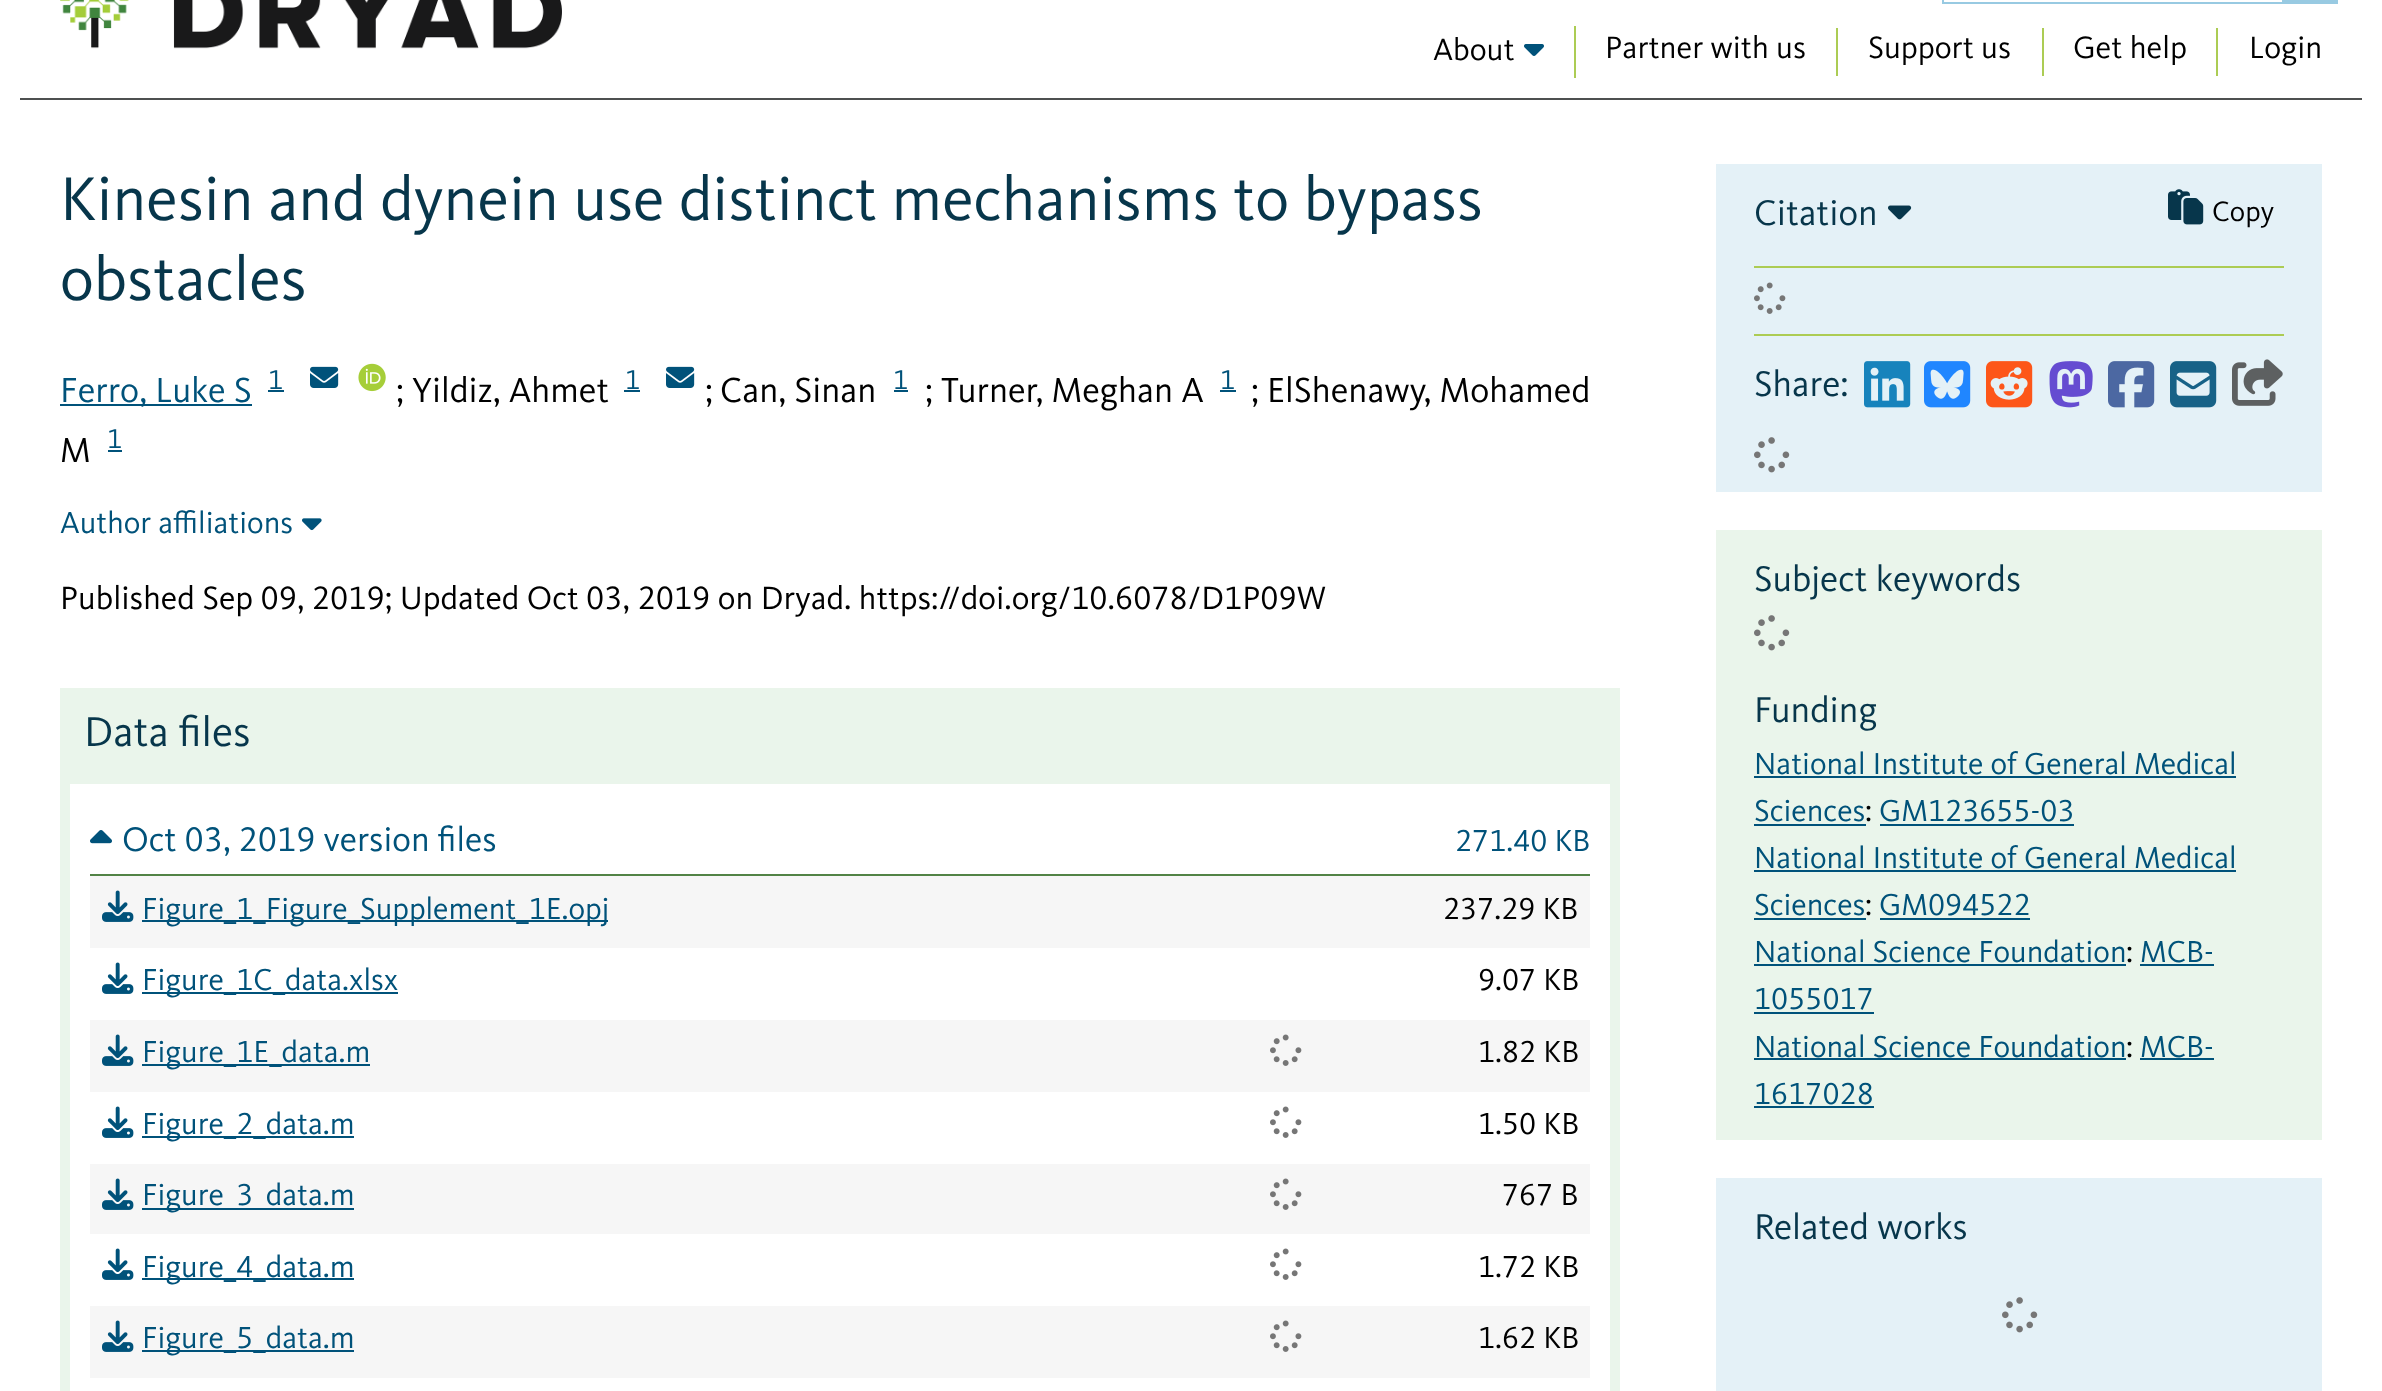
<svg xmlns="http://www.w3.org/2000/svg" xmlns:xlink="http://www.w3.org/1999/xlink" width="2382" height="1391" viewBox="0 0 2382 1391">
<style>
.cls-1{font:32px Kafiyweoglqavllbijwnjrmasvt;fill:#000000}
.cls-2{font:64px Kafiyweoglqavllbijwnjrmasvt;fill:#07364b}
.cls-3{font:36px Kafiyweoglqavllbijwnjrmasvt;fill:#00527a}
.cls-4{font:28px Kafiyweoglqavllbijwnjrmasvt;fill:#00527a}
.cls-5{font:35.25px Kafiyweoglqavllbijwnjrmasvt;fill:#000000}
.cls-6{font:36px Kafiyweoglqavllbijwnjrmasvt;fill:#000000}
.cls-7{font:31.4px Kafiyweoglqavllbijwnjrmasvt;fill:#00527a}
.cls-8{font:33.45px Kafiyweoglqavllbijwnjrmasvt;fill:#000000}
.cls-9{font:43px Kafiyweoglqavllbijwnjrmasvt;fill:#07364b}
.cls-10{font:35.25px Kafiyweoglqavllbijwnjrmasvt;fill:#00527a}
.cls-11{font:31.4px Kafiyweoglqavllbijwnjrmasvt;fill:#000000}
.cls-12{font:37px Kafiyweoglqavllbijwnjrmasvt;fill:#07364b}
.cls-13{font:29px Kafiyweoglqavllbijwnjrmasvt;fill:#000000}
</style>
<rect width="100%" height="100%" fill="#ffffff"/>
<rect fill="#4e5050" x="20" y="98" width="2342" height="2"/>
<image xlink:href="image0.png" x="60" y="0" width="502" height="49"/>
<rect fill="#98cae2" x="1942" y="2" width="340" height="2"/>
<rect fill="#98cae2" x="1942" y="0" width="2" height="4"/>
<rect fill="#98cae2" x="2282" y="0" width="56" height="4"/>
<rect fill="#accc54" x="1574" y="26" width="2" height="52"/>
<image xlink:href="image1.png" x="1524" y="44" width="20" height="12"/>
<rect fill="#accc54" x="1836" y="28" width="2" height="48"/>
<rect fill="#accc54" x="2042" y="28" width="2" height="48"/>
<rect fill="#accc54" x="2216" y="28" width="2" height="48"/>
<rect fill="#00527a" x="60" y="404" width="192" height="2"/>
<rect fill="#00527a" x="268" y="390" width="16" height="2"/>
<image xlink:href="image2.png" x="310" y="366" width="29" height="22"/>
<image xlink:href="image3.png" x="358" y="363" width="28" height="29"/>
<rect fill="#00527a" x="624" y="390" width="16" height="2"/>
<image xlink:href="image2.png" x="666" y="366" width="29" height="22"/>
<rect fill="#00527a" x="894" y="390" width="14" height="2"/>
<rect fill="#00527a" x="1220" y="390" width="16" height="2"/>
<rect fill="#00527a" x="108" y="450" width="14" height="2"/>
<image xlink:href="image4.png" x="302" y="518" width="20" height="13"/>
<rect fill="#eaf5eb" x="60" y="688" width="1560" height="96"/>
<rect fill="#eaf5eb" x="1610" y="784" width="10" height="607"/>
<rect fill="#eaf5eb" x="60" y="784" width="10" height="607"/>
<rect fill="#528346" x="90" y="874" width="1500" height="2"/>
<image xlink:href="image5.png" x="90" y="830" width="22" height="14"/>
<rect fill="#f6f6f6" x="90" y="876" width="1500" height="72"/>
<image xlink:href="image6.png" x="102" y="890" width="32" height="32"/>
<rect fill="#00527a" x="142" y="920" width="466" height="2"/>
<image xlink:href="image7.png" x="102" y="962" width="32" height="32"/>
<rect fill="#00527a" x="142" y="992" width="256" height="2"/>
<rect fill="#f6f6f6" x="90" y="1020" width="1500" height="72"/>
<image xlink:href="image6.png" x="102" y="1034" width="32" height="32"/>
<rect fill="#00527a" x="142" y="1064" width="228" height="2"/>
<image xlink:href="image8.png" x="1270" y="1034" width="32" height="32"/>
<image xlink:href="image7.png" x="102" y="1106" width="32" height="32"/>
<rect fill="#00527a" x="142" y="1136" width="212" height="2"/>
<image xlink:href="image9.png" x="1270" y="1106" width="32" height="32"/>
<rect fill="#f6f6f6" x="90" y="1164" width="1500" height="70"/>
<image xlink:href="image6.png" x="102" y="1178" width="32" height="32"/>
<rect fill="#00527a" x="142" y="1208" width="212" height="2"/>
<image xlink:href="image8.png" x="1270" y="1178" width="32" height="32"/>
<image xlink:href="image7.png" x="102" y="1248" width="32" height="32"/>
<rect fill="#00527a" x="142" y="1278" width="212" height="2"/>
<image xlink:href="image9.png" x="1270" y="1248" width="32" height="32"/>
<rect fill="#f6f6f6" x="90" y="1306" width="1500" height="72"/>
<image xlink:href="image6.png" x="102" y="1320" width="32" height="32"/>
<rect fill="#00527a" x="142" y="1350" width="212" height="2"/>
<image xlink:href="image8.png" x="1270" y="1320" width="32" height="32"/>
<rect fill="#e4f1f7" x="1716" y="164" width="606" height="328"/>
<image xlink:href="image10.png" x="1888" y="205" width="24" height="15"/>
<image xlink:href="image11.png" x="2168" y="189" width="36" height="36"/>
<rect fill="#accc54" x="1754" y="266" width="530" height="2"/>
<rect fill="#accc54" x="1754" y="334" width="530" height="2"/>
<image xlink:href="image12.png" x="1754" y="282" width="32" height="32"/>
<image xlink:href="image13.png" x="1864" y="361" width="47" height="47"/>
<image xlink:href="image14.png" x="1924" y="361" width="47" height="47"/>
<image xlink:href="image15.png" x="1986" y="361" width="47" height="47"/>
<image xlink:href="image16.png" x="2049" y="361" width="44" height="47"/>
<image xlink:href="image17.png" x="2108" y="361" width="47" height="47"/>
<image xlink:href="image18.png" x="2170" y="361" width="47" height="47"/>
<image xlink:href="image19.png" x="2232" y="359" width="51" height="47"/>
<image xlink:href="image20.png" x="1754" y="437" width="36" height="36"/>
<rect fill="#eaf5eb" x="1716" y="530" width="606" height="610"/>
<image xlink:href="image21.png" x="1754" y="615" width="36" height="36"/>
<rect fill="#00527a" x="1754" y="776" width="482" height="2"/>
<rect fill="#00527a" x="1754" y="824" width="112" height="2"/>
<rect fill="#00527a" x="1880" y="824" width="194" height="2"/>
<rect fill="#00527a" x="1754" y="870" width="482" height="2"/>
<rect fill="#00527a" x="1754" y="918" width="112" height="2"/>
<rect fill="#00527a" x="1880" y="918" width="150" height="2"/>
<rect fill="#00527a" x="1754" y="964" width="372" height="2"/>
<rect fill="#00527a" x="2140" y="964" width="74" height="2"/>
<rect fill="#00527a" x="1754" y="1012" width="120" height="2"/>
<rect fill="#00527a" x="1754" y="1058" width="372" height="2"/>
<rect fill="#00527a" x="2140" y="1058" width="74" height="2"/>
<rect fill="#00527a" x="1754" y="1106" width="120" height="2"/>
<rect fill="#e4f1f7" x="1716" y="1178" width="606" height="213"/>
<image xlink:href="image20.png" x="2002" y="1297" width="36" height="36"/>
<text class="cls-1" x="1433" y="60">About</text>
<text class="cls-1" x="1605" y="58">Partner with us</text>
<text class="cls-1" x="1868" y="58">Support us</text>
<text class="cls-1" x="2073" y="58">Get help</text>
<text class="cls-1" x="2249" y="58">Login</text>
<text class="cls-2"><tspan x="60" y="220">Kinesin and dynein use distinct mechanisms to bypass</tspan><tspan x="60" y="300">obstacles</tspan></text>
<text class="cls-3" x="60" y="402">Ferro, Luke S</text>
<text class="cls-4" x="268" y="389">1</text>
<text class="cls-5" x="396" y="402">;</text>
<text class="cls-6" x="412" y="402">Yildiz, Ahmet</text>
<text class="cls-4" x="625" y="389">1</text>
<text class="cls-5" x="705" y="402">;</text>
<text class="cls-6" x="720" y="402">Can, Sinan</text>
<text class="cls-4" x="893" y="389">1</text>
<text class="cls-5" x="925" y="402">;</text>
<text class="cls-6" x="941" y="402">Turner, Meghan A</text>
<text class="cls-4" x="1220" y="389">1</text>
<text class="cls-5" x="1251" y="402">;</text>
<text class="cls-6" x="1267" y="402">ElShenawy, Mohamed</text>
<text class="cls-6" x="60" y="462">M</text>
<text class="cls-4" x="107" y="448">1</text>
<text class="cls-7" x="60" y="533">Author affiliations</text>
<text class="cls-8" x="60" y="609">Published Sep 09, 2019; Updated Oct 03, 2019 on Dryad. https://doi.org/10.6078/D1P09W</text>
<text class="cls-9" x="84" y="746">Data files</text>
<text class="cls-10" x="122" y="851">Oct 03, 2019 version files</text>
<text class="cls-7" x="1455" y="851">271.40 KB</text>
<text class="cls-7" x="142" y="919">Figure_1_Figure_Supplement_1E.opj</text>
<text class="cls-11" x="1443" y="919">237.29 KB</text>
<text class="cls-7" x="142" y="990">Figure_1C_data.xlsx</text>
<text class="cls-11" x="1478" y="990">9.07 KB</text>
<text class="cls-7" x="142" y="1062">Figure_1E_data.m</text>
<text class="cls-11" x="1478" y="1062">1.82 KB</text>
<text class="cls-7" x="142" y="1134">Figure_2_data.m</text>
<text class="cls-11" x="1478" y="1134">1.50 KB</text>
<text class="cls-7" x="142" y="1205">Figure_3_data.m</text>
<text class="cls-11" x="1502" y="1205">767 B</text>
<text class="cls-7" x="142" y="1277">Figure_4_data.m</text>
<text class="cls-11" x="1478" y="1277">1.72 KB</text>
<text class="cls-7" x="142" y="1348">Figure_5_data.m</text>
<text class="cls-11" x="1478" y="1348">1.62 KB</text>
<text class="cls-12" x="1754" y="225">Citation</text>
<text class="cls-13" x="2212" y="221">Copy</text>
<text class="cls-12" x="1754" y="396">Share:</text>
<text class="cls-12" x="1754" y="591">Subject keywords</text>
<text class="cls-12" x="1754" y="722">Funding</text>
<text class="cls-7"><tspan x="1754" y="774">National Institute of General Medical</tspan><tspan x="1754" y="821">Sciences</tspan></text>
<text class="cls-11" x="1865" y="821">:</text>
<text class="cls-7" x="1879" y="821">GM123655-03</text>
<text class="cls-7"><tspan x="1754" y="868">National Institute of General Medical</tspan><tspan x="1754" y="915">Sciences</tspan></text>
<text class="cls-11" x="1865" y="915">:</text>
<text class="cls-7" x="1879" y="915">GM094522</text>
<text class="cls-7" x="1754" y="962">National Science Foundation</text>
<text class="cls-11" x="2126" y="962">:</text>
<text class="cls-7" x="2140" y="962">MCB-</text>
<text class="cls-7"><tspan x="1754" y="1009">1055017</tspan><tspan x="1754" y="1057">National Science Foundation</tspan></text>
<text class="cls-11" x="2126" y="1057">:</text>
<text class="cls-7" x="2140" y="1057">MCB-</text>
<text class="cls-7" x="1754" y="1104">1617028</text>
<text class="cls-12" x="1754" y="1239">Related works</text>
</svg>
